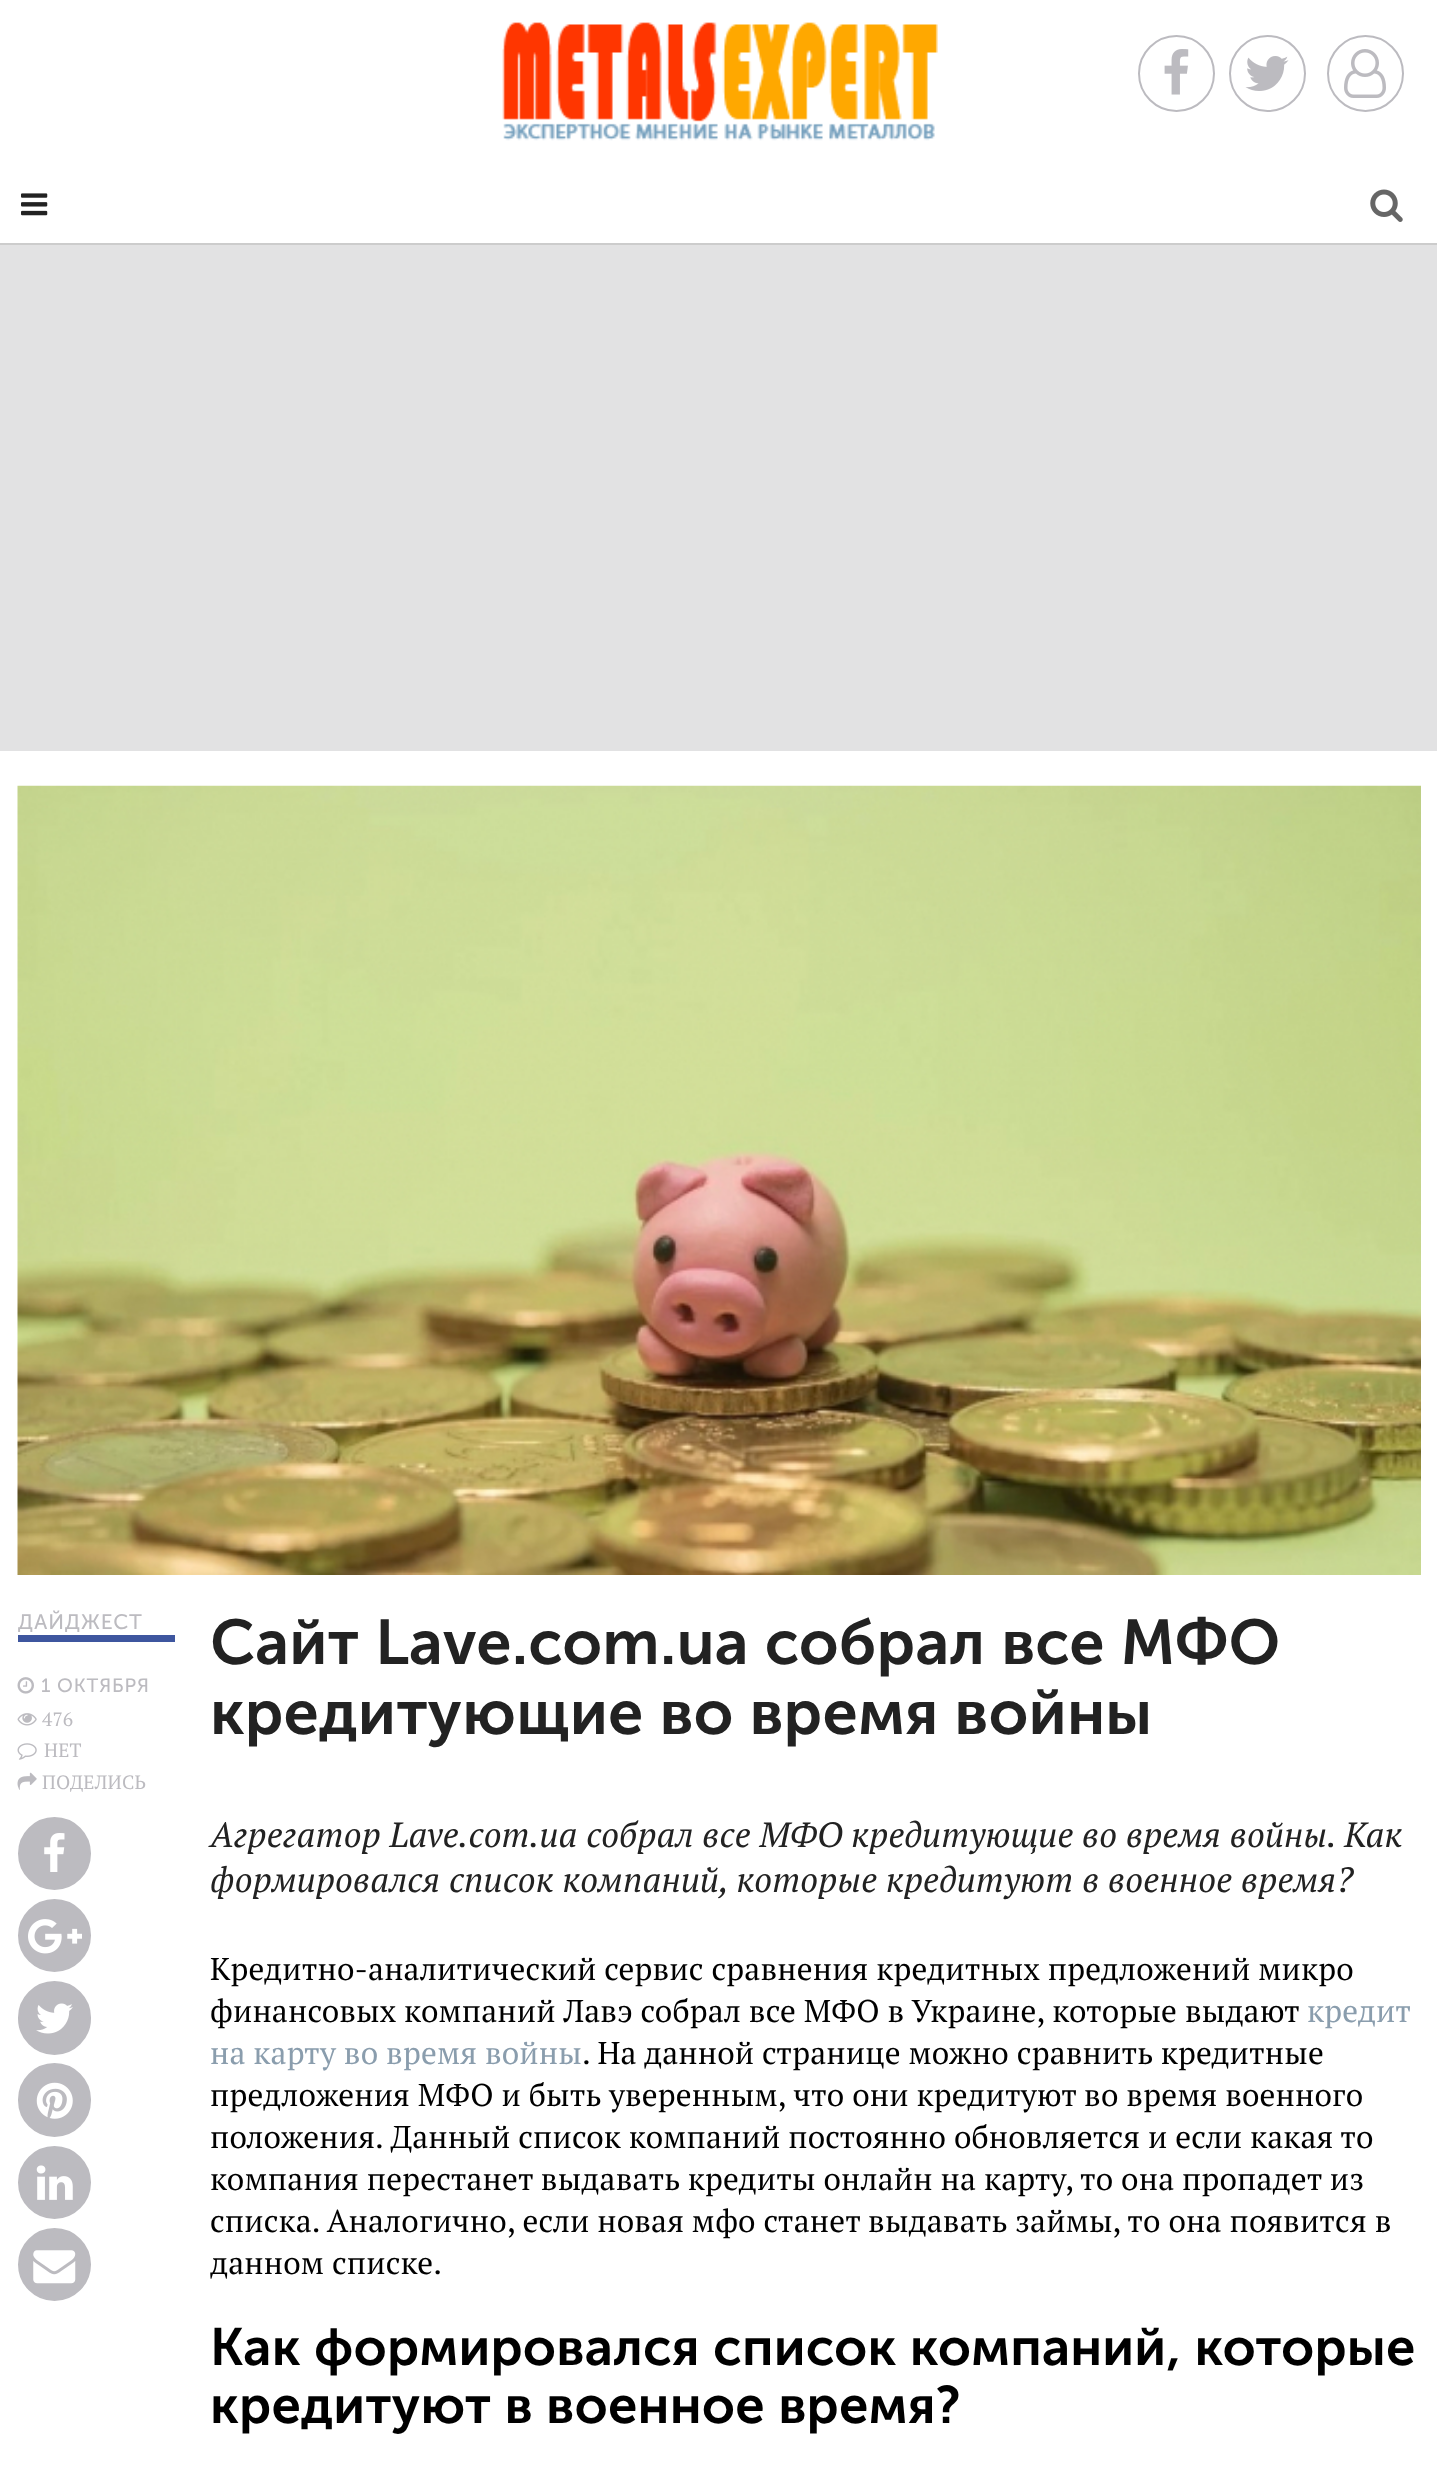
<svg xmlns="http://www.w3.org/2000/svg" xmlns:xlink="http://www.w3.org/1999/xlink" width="1437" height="2478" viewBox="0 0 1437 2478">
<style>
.cls-1{font:21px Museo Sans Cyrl;letter-spacing:0.9px;fill:#bcbbc0}
.cls-2{font:19.25px Museo Sans Cyrl;letter-spacing:0.9px;fill:#bcbbc0}
.cls-3{font:19.25px PT Serif;letter-spacing:0.18px;fill:#bcbbc0}
.cls-4{font:600 63px Museo Sans Cyrl;letter-spacing:0.18px;fill:#222222}
.cls-5{font:italic 35px PT Serif;letter-spacing:0.18px;fill:#222222}
.cls-6{font:31.5px PT Serif;letter-spacing:0.18px;fill:#000000}
.cls-7{font:31.5px PT Serif;letter-spacing:0.18px;fill:#8a9dad}
.cls-8{font:600 52.5px Museo Sans Cyrl;letter-spacing:0.18px;fill:#000000}
</style>
<rect width="100%" height="100%" fill="#ffffff"/>
<rect fill="#cccccc" x="0" y="243" width="1437" height="2"/>
<image xlink:href="image0.png" x="502" y="22" width="436" height="119"/>
<circle fill="none" stroke="#bcbbc0" stroke-width="2" cx="1176.5" cy="73.5" r="37.5"/>
<image xlink:href="image1.png" x="1164" y="49" width="25" height="46"/>
<circle fill="none" stroke="#bcbbc0" stroke-width="2" cx="1267.5" cy="73.5" r="37.5"/>
<image xlink:href="image2.png" x="1245" y="56" width="44" height="35"/>
<circle fill="none" stroke="#bcbbc0" stroke-width="2" cx="1365.5" cy="73.5" r="37.5"/>
<image xlink:href="image3.png" x="1344" y="49" width="42" height="49"/>
<image xlink:href="image4.png" x="21" y="193" width="27" height="23"/>
<image xlink:href="image5.png" x="1370" y="189" width="33" height="33"/>
<rect fill="#e2e2e3" x="0" y="245" width="1437" height="506"/>
<image xlink:href="image6.png" x="17" y="785" width="1404" height="790"/>
<rect fill="#3e569f" x="18" y="1635" width="157" height="7"/>
<image xlink:href="image7.png" x="17" y="1677" width="17" height="17"/>
<image xlink:href="image8.png" x="17" y="1713" width="20" height="13"/>
<image xlink:href="image9.png" x="17" y="1743" width="20" height="17"/>
<image xlink:href="image10.png" x="17" y="1772" width="20" height="18"/>
<circle fill="#bcbbc0" stroke="#bcbbc0" stroke-width="2" cx="54.5" cy="1853.5" r="35.5"/>
<image xlink:href="image11.png" x="44" y="1833" width="21" height="39"/>
<circle fill="#bcbbc0" stroke="#bcbbc0" stroke-width="2" cx="54.5" cy="1935.5" r="35.5"/>
<image xlink:href="image12.png" x="28" y="1919" width="54" height="35"/>
<rect fill="#bcbbc0" stroke="#bcbbc0" stroke-width="2" x="19" y="1982" width="71" height="72" rx="35.5"/>
<image xlink:href="image13.png" x="36" y="2003" width="37" height="31"/>
<rect fill="#bcbbc0" stroke="#bcbbc0" stroke-width="2" x="19" y="2064" width="71" height="72" rx="35.5"/>
<image xlink:href="image14.png" x="36" y="2082" width="37" height="37"/>
<circle fill="#bcbbc0" stroke="#bcbbc0" stroke-width="2" cx="54.5" cy="2182.5" r="35.5"/>
<image xlink:href="image15.png" x="36" y="2165" width="37" height="35"/>
<circle fill="#bcbbc0" stroke="#bcbbc0" stroke-width="2" cx="54.5" cy="2264.5" r="35.5"/>
<image xlink:href="image16.png" x="33" y="2250" width="43" height="34"/>
<text class="cls-1" x="18" y="1629">ДАЙДЖЕСТ</text>
<text class="cls-2" x="41" y="1692">1 ОКТЯБРЯ</text>
<text class="cls-3" x="42" y="1726">476</text>
<text class="cls-3" x="44" y="1757">НЕТ</text>
<text class="cls-3" x="42" y="1789">ПОДЕЛИСЬ</text>
<text class="cls-4"><tspan x="210" y="1664">Сайт Lave.com.ua собрал все МФО</tspan><tspan x="210" y="1734">кредитующие во время войны</tspan></text>
<text class="cls-5"><tspan x="210" y="1847">Агрегатор Lave.com.ua собрал все МФО кредитующие во время войны. Как</tspan><tspan x="210" y="1892">формировался список компаний, которые кредитуют в военное время?</tspan></text>
<text class="cls-6"><tspan x="210" y="1980">Кредитно-аналитический сервис сравнения кредитных предложений микро</tspan><tspan x="210" y="2022">финансовых компаний Лавэ собрал все МФО в Украине, которые выдают</tspan></text>
<text class="cls-7" x="1307" y="2022">кредит</text>
<text class="cls-7" x="210" y="2064">на карту во время войны</text>
<text class="cls-6" x="582" y="2064">. На данной странице можно сравнить кредитные</text>
<text class="cls-6"><tspan x="210" y="2106">предложения МФО и быть уверенным, что они кредитуют во время военного</tspan><tspan x="210" y="2148">положения. Данный список компаний постоянно обновляется и если какая то</tspan><tspan x="210" y="2190">компания перестанет выдавать кредиты онлайн на карту, то она пропадет из</tspan><tspan x="210" y="2232">списка. Аналогично, если новая мфо станет выдавать займы, то она появится в</tspan><tspan x="210" y="2274">данном списке.</tspan></text>
<text class="cls-8"><tspan x="210" y="2365">Как формировался список компаний, которые</tspan><tspan x="210" y="2423">кредитуют в военное время?</tspan></text>
</svg>
